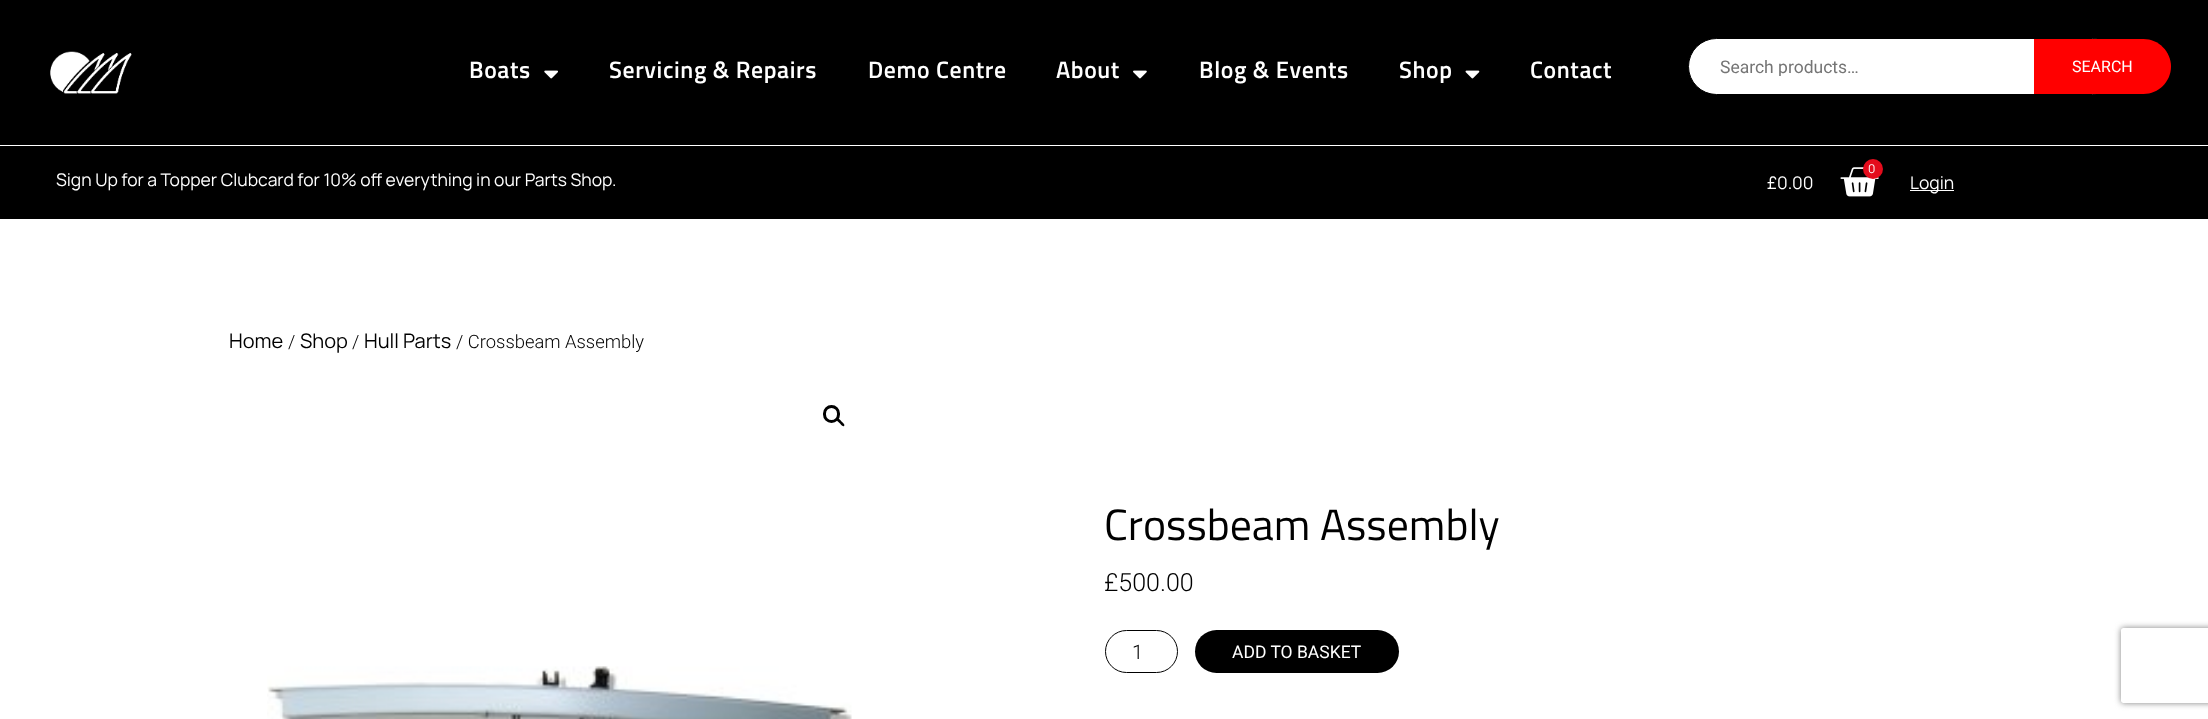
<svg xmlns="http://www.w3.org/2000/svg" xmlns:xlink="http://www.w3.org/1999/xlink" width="2208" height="719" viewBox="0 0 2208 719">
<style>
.cls-1{font:500 23.75px Sunflower;letter-spacing:0.6px;fill:#ffffff}
.cls-2{font:17.5px Roboto;fill:#757575}
.cls-3{font:16px Roboto;fill:#ffffff}
.cls-4{font:17.5px Manrope;fill:#ffffff}
.cls-5{font:12px Manrope;fill:#ffffff}
.cls-6{font:20px Manrope;fill:#000000}
.cls-7{font:300 18.4px Roboto;fill:#000000}
.cls-8{font:300 43.75px Sunflower;fill:#000000}
.cls-9{font:300 25px Roboto;fill:#000000}
.cls-10{font:300 20px Roboto;fill:#000000}
.cls-11{font:17.5px Roboto;fill:#ffffff}
</style>
<defs>
<clipPath id="clip1"><path d="M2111 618H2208V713H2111ZM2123.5 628H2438.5C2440 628 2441 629 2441 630.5V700.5C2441 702 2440 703 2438.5 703H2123.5C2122 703 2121 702 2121 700.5V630.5C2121 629 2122 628 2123.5 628Z" clip-rule="evenodd"/></clipPath>
<clipPath id="clip2"><rect x="1720" y="56" width="358" height="20"/></clipPath>
</defs>
<rect width="100%" height="100%" fill="#ffffff"/>
<rect fill="#000000" x="0" y="0" width="2208" height="145"/>
<image xlink:href="image0.png" x="50" y="51" width="82" height="43"/>
<image xlink:href="image1.png" x="544" y="70" width="14" height="9"/>
<image xlink:href="image2.png" x="1133" y="70" width="14" height="9"/>
<image xlink:href="image3.png" x="1465" y="70" width="15" height="9"/>
<rect fill="#ffffff" stroke="#000000" x="1688.5" y="38.5" width="432" height="56" rx="28"/>
<path fill="#ff0000" d="M2034 39H2143.5C2158.5 39 2171 51.5 2171 66.5C2171 81.5 2158.5 94 2143.5 94H2034Z"/>
<rect fill="#000000" x="0" y="146" width="2208" height="73"/>
<image xlink:href="image4.png" x="1840" y="167" width="39" height="30"/>
<circle fill="#e40c1c" cx="1873" cy="169" r="10"/>
<rect fill="#ffffff" x="1910" y="190" width="44" height="1"/>
<rect fill="none" stroke="#000000" stroke-width="3" x="824.5" y="406.5" width="14" height="15" rx="7"/>
<path fill="#000000" d="M837 418.5C838.5 417.5 840.5 420.5 841.5 421.5C842 422 845.5 424.5 844 426C842.5 427 840.5 424 839.5 423C839 422.5 835.5 420 837 418.5Z"/>
<image xlink:href="image5.png" x="267" y="666" width="585" height="53"/>
<rect fill="none" stroke="#000000" x="1105.5" y="630.5" width="72" height="42" rx="21"/>
<rect fill="#000000" x="1195" y="630" width="204" height="43" rx="21.5"/>
<g clip-path="url(#clip1)">
<rect fill="#808080" filter="blur(3px)" x="2121" y="628" width="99" height="75" rx="2.5"/>
</g>
<text class="cls-1" x="469" y="78">Boats</text>
<text class="cls-1" x="609" y="78">Servicing &amp; Repairs</text>
<text class="cls-1" x="868" y="78">Demo Centre</text>
<text class="cls-1" x="1056" y="78">About</text>
<text class="cls-1" x="1199" y="78">Blog &amp; Events</text>
<text class="cls-1" x="1399" y="78">Shop</text>
<text class="cls-1" x="1530" y="78">Contact</text>
<g clip-path="url(#clip2)">
<text class="cls-2" x="1720" y="73">Search products…</text>
</g>
<text class="cls-3" x="2072" y="72">SEARCH</text>
<text class="cls-4" x="56" y="186">Sign Up for a Topper Clubcard for 10% off everything in our Parts Shop.</text>
<text class="cls-5" x="1868" y="173">0</text>
<text class="cls-4" x="1767" y="189">£0.00</text>
<text class="cls-4" x="1910" y="189">Login</text>
<text class="cls-6" x="229" y="348">Home</text>
<text class="cls-7" x="288" y="348">/</text>
<text class="cls-6" x="300" y="348">Shop</text>
<text class="cls-7" x="352" y="348">/</text>
<text class="cls-6" x="364" y="348">Hull Parts</text>
<text class="cls-7" x="456" y="348">/ Crossbeam Assembly</text>
<text class="cls-8" x="1104" y="540">Crossbeam Assembly</text>
<text class="cls-9" x="1104" y="591">£500.00</text>
<text class="cls-10" x="1132" y="659">1</text>
<text class="cls-11" x="1232" y="658">ADD TO BASKET</text>
</svg>
